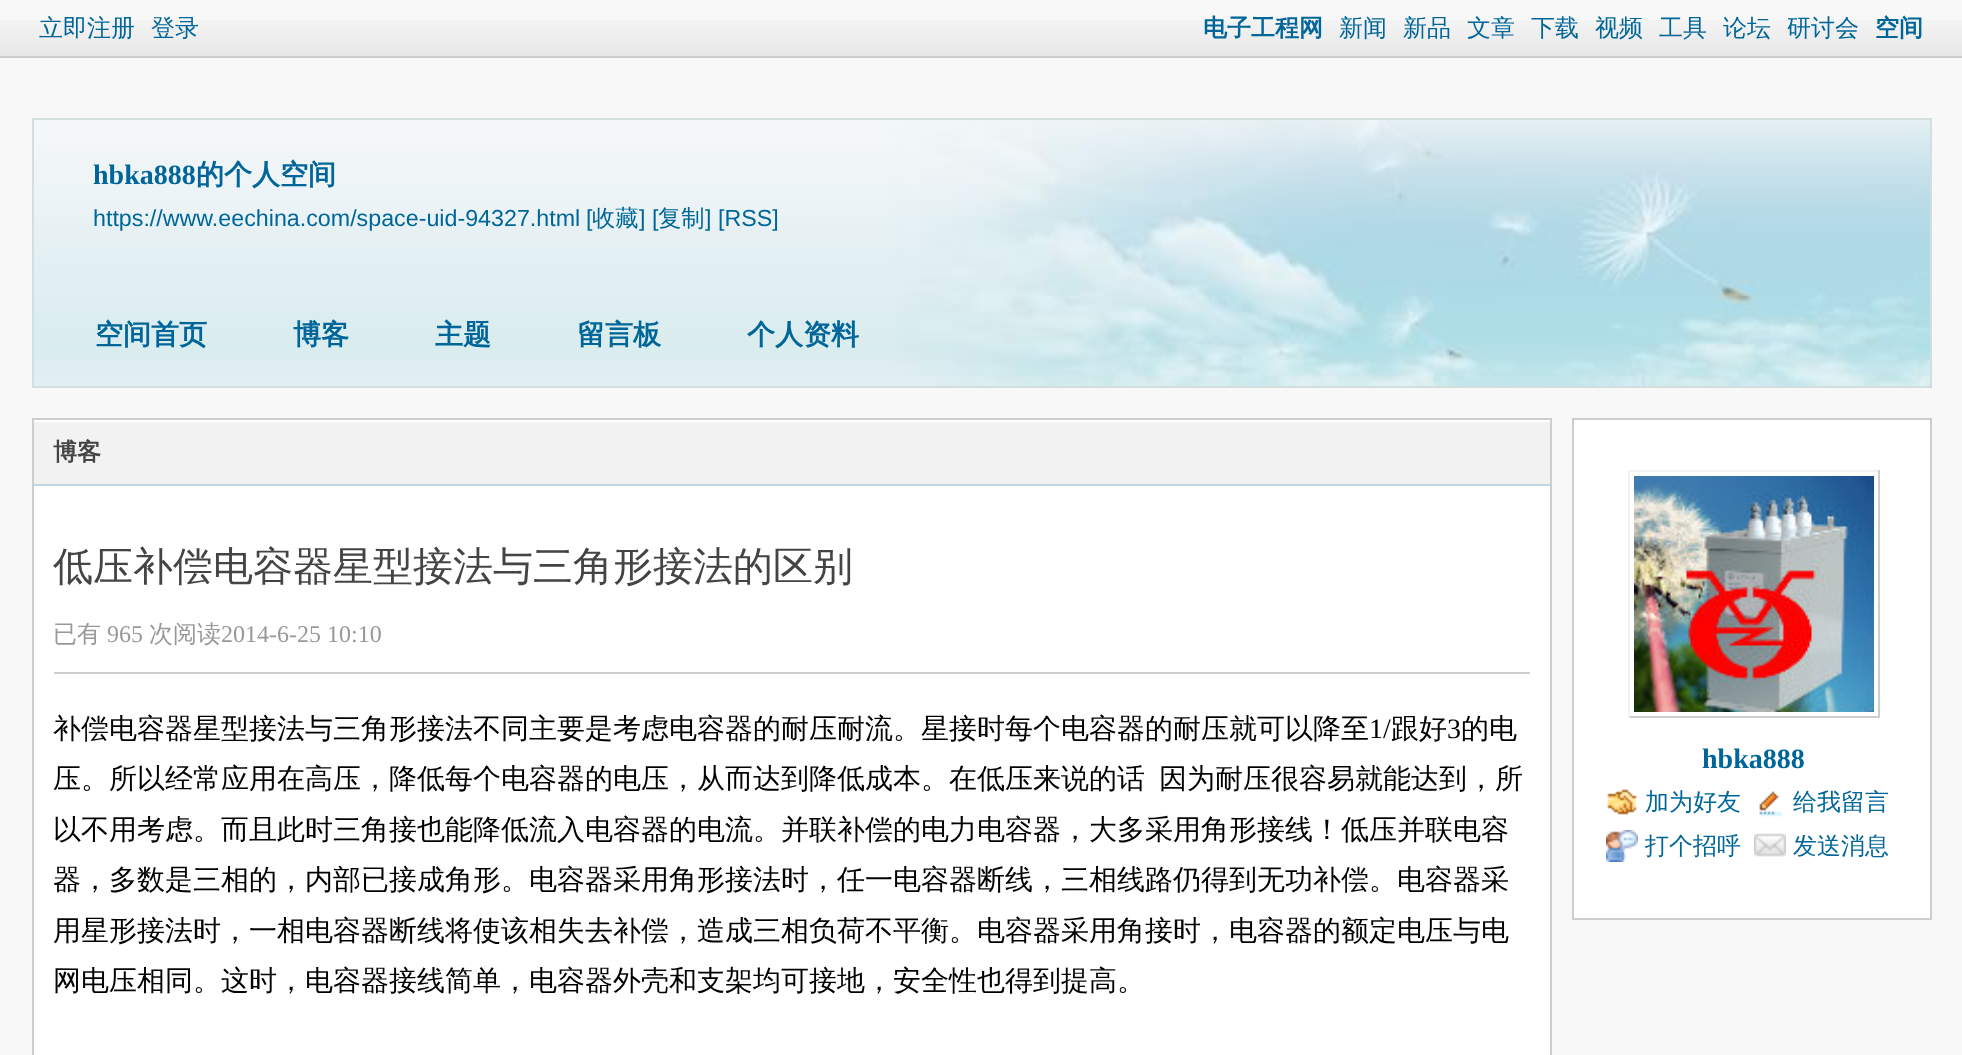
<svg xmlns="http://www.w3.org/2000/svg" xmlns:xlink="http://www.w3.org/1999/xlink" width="1962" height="1055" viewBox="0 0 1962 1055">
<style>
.cls-1{font:500 24px WenQuanYi Zen Hei;fill:#006699}
.cls-2{font:bold 24px WenQuanYi Zen Hei;fill:#006699}
.cls-3{font:bold 28px Liberation Serif;fill:#006699}
.cls-4{font:bold 28px WenQuanYi Zen Hei;fill:#006699}
.cls-5{font:23.25px Liberation Sans;fill:#006699}
.cls-6{font:500 23.25px WenQuanYi Zen Hei;fill:#006699}
.cls-7{font:bold 24px WenQuanYi Zen Hei;fill:#444444}
.cls-8{font:500 40px WenQuanYi Zen Hei;fill:#444444}
.cls-9{font:500 24px WenQuanYi Zen Hei;fill:#999999}
.cls-10{font:24px Liberation Serif;fill:#999999}
.cls-11{font:500 28px WenQuanYi Zen Hei;fill:#000000}
.cls-12{font:28px Liberation Serif;fill:#000000}
</style>
<rect width="100%" height="100%" fill="#f8f8f8"/>
<image xlink:href="image0.png" x="0" y="20" width="1962" height="36"/>
<rect fill="#cdcdcd" x="0" y="56" width="1962" height="2"/>
<image xlink:href="image1.png" x="34" y="120" width="1896" height="266"/>
<rect fill="none" stroke="#d3dfdf" stroke-width="2" x="33" y="119" width="1898" height="268"/>
<rect fill="#ffffff" x="34" y="486" width="1516" height="569"/>
<rect fill="none" stroke="#cdcdcd" stroke-width="2" x="33" y="419" width="1518" height="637"/>
<rect fill="#f2f2f2" x="34" y="422" width="1516" height="62"/>
<rect fill="#ffffff" x="34" y="420" width="1516" height="2"/>
<rect fill="#c2d5e3" x="34" y="484" width="1516" height="2"/>
<rect fill="#cdcdcd" x="54" y="672" width="1476" height="2"/>
<rect fill="#ffffff" stroke="#cdcdcd" stroke-width="2" x="1573" y="419" width="358" height="500"/>
<rect fill="#f2f2f2" x="1628" y="470" width="252" height="2"/>
<rect fill="#cdcdcd" x="1878" y="470" width="2" height="248"/>
<rect fill="#cdcdcd" x="1628" y="716" width="252" height="2"/>
<rect fill="#f2f2f2" x="1628" y="470" width="2" height="248"/>
<image xlink:href="image2.png" x="1634" y="476" width="240" height="236"/>
<image xlink:href="image3.png" x="1607" y="789" width="30" height="26"/>
<image xlink:href="image4.png" x="1759" y="791" width="24" height="26"/>
<image xlink:href="image5.png" x="1606" y="830" width="32" height="32"/>
<image xlink:href="image6.png" x="1754" y="833" width="32" height="24"/>
<text class="cls-1" x="39" y="36">立即注册</text>
<text class="cls-1" x="151" y="36">登录</text>
<text class="cls-2" x="1203" y="36">电子工程网</text>
<text class="cls-1" x="1339" y="36">新闻</text>
<text class="cls-1" x="1403" y="36">新品</text>
<text class="cls-1" x="1467" y="36">文章</text>
<text class="cls-1" x="1531" y="36">下载</text>
<text class="cls-1" x="1595" y="36">视频</text>
<text class="cls-1" x="1659" y="36">工具</text>
<text class="cls-1" x="1723" y="36">论坛</text>
<text class="cls-1" x="1787" y="36">研讨会</text>
<text class="cls-2" x="1875" y="36">空间</text>
<text class="cls-3" x="93" y="184">hbka888</text>
<text class="cls-4" x="196" y="184">的个人空间</text>
<text class="cls-5" x="93" y="226">https://www.eechina.com/space-uid-94327.html</text>
<text class="cls-5" x="586" y="226">[</text>
<text class="cls-6" x="592" y="226">收藏</text>
<text class="cls-5" x="639" y="226">] [</text>
<text class="cls-6" x="658" y="226">复制</text>
<text class="cls-5" x="705" y="226">] [RSS]</text>
<text class="cls-4" x="95" y="344">空间首页</text>
<text class="cls-4" x="293" y="344">博客</text>
<text class="cls-4" x="435" y="344">主题</text>
<text class="cls-4" x="577" y="344">留言板</text>
<text class="cls-4" x="747" y="344">个人资料</text>
<text class="cls-7" x="53" y="460">博客</text>
<text class="cls-8" x="53" y="580">低压补偿电容器星型接法与三角形接法的区别</text>
<text class="cls-9" x="53" y="642">已有</text>
<text class="cls-10" x="107" y="642">965</text>
<text class="cls-9" x="149" y="642">次阅读</text>
<text class="cls-10" x="221" y="642">2014-6-25 10:10</text>
<text class="cls-11" x="53" y="738">补偿电容器星型接法与三角形接法不同主要是考虑电容器的耐压耐流。星接时每个电容器的耐压就可以降至</text>
<text class="cls-12" x="1369" y="738">1/</text>
<text class="cls-11" x="1391" y="738">跟好</text>
<text class="cls-12" x="1447" y="738">3</text>
<text class="cls-11" x="1461" y="738">的电</text>
<text class="cls-11" x="53" y="788">压。所以经常应用在高压，降低每个电容器的电压，从而达到降低成本。在低压来说的话</text>
<text class="cls-11" x="1159" y="788">因为耐压很容易就能达到，所</text>
<text class="cls-11"><tspan x="53" y="839">以不用考虑。而且此时三角接也能降低流入电容器的电流。并联补偿的电力电容器，大多采用角形接线！低压并联电容</tspan><tspan x="53" y="889">器，多数是三相的，内部已接成角形。电容器采用角形接法时，任一电容器断线，三相线路仍得到无功补偿。电容器采</tspan><tspan x="53" y="940">用星形接法时，一相电容器断线将使该相失去补偿，造成三相负荷不平衡。电容器采用角接时，电容器的额定电压与电</tspan><tspan x="53" y="990">网电压相同。这时，电容器接线简单，电容器外壳和支架均可接地，安全性也得到提高。</tspan></text>
<text class="cls-3" x="1702" y="768">hbka888</text>
<text class="cls-1" x="1645" y="810">加为好友</text>
<text class="cls-1" x="1793" y="810">给我留言</text>
<text class="cls-1" x="1645" y="854">打个招呼</text>
<text class="cls-1" x="1793" y="854">发送消息</text>
</svg>
